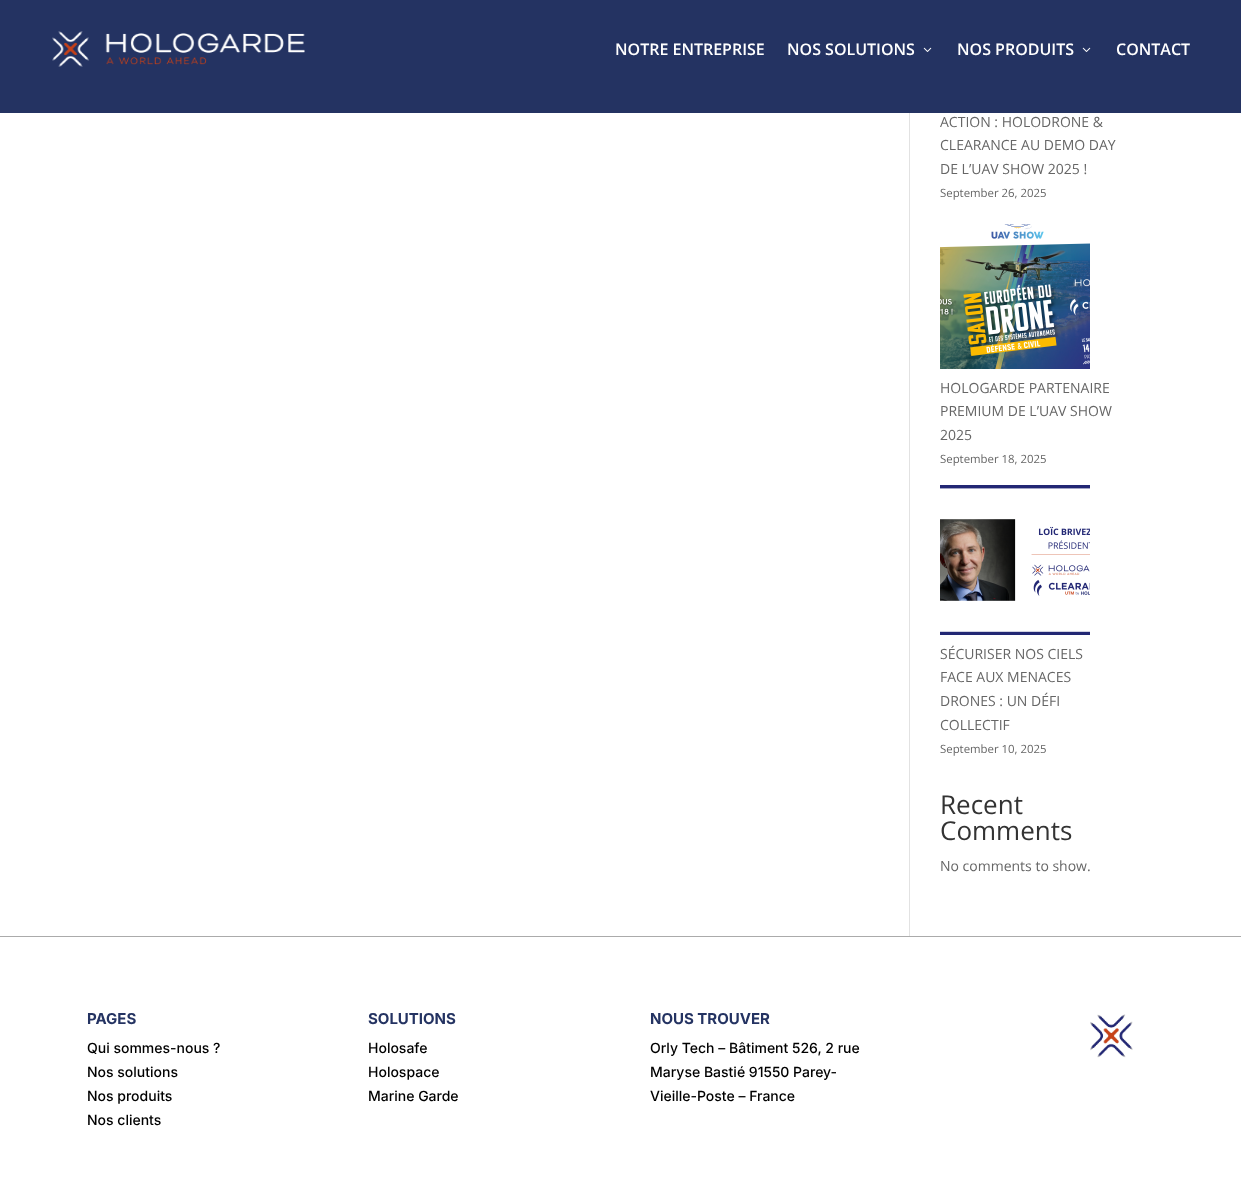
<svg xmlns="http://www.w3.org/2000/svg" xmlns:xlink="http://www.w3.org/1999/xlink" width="1241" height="1180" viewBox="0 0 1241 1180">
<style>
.cls-1{font:600 16px Open Sans;fill:#ffffff}
.cls-2{font:14px Open Sans;fill:#666666}
.cls-3{font:11.4px Open Sans;fill:#666666}
.cls-4{font:26px Open Sans;fill:#333333}
.cls-5{font:bold 15px Inter;fill:#243362}
.cls-6{font:500 14px Inter;fill:#000000}
</style>
<rect width="100%" height="100%" fill="#ffffff"/>
<rect fill="#243362" x="0" y="0" width="1241" height="113"/>
<image xlink:href="image0.png" x="52" y="31" width="253" height="36"/>
<image xlink:href="image1.png" x="923" y="47" width="9" height="5"/>
<image xlink:href="image1.png" x="1082" y="47" width="9" height="5"/>
<rect fill="#e2e2e2" x="909" y="113" width="1" height="823"/>
<image xlink:href="image2.png" x="940" y="224" width="150" height="145"/>
<image xlink:href="image3.png" x="940" y="485" width="150" height="150"/>
<rect fill="#ababab" x="0" y="936" width="1241" height="1"/>
<image xlink:href="image4.png" x="1090" y="1014" width="43" height="44"/>
<text class="cls-1" x="615" y="55">NOTRE ENTREPRISE</text>
<text class="cls-1" x="787" y="55">NOS SOLUTIONS</text>
<text class="cls-1" x="957" y="55">NOS PRODUITS</text>
<text class="cls-1" x="1116" y="55">CONTACT</text>
<text class="cls-2"><tspan x="940" y="127">ACTION : HOLODRONE &amp;</tspan><tspan x="940" y="150">CLEARANCE AU DEMO DAY</tspan><tspan x="940" y="174">DE L’UAV SHOW 2025 !</tspan></text>
<text class="cls-3" x="940" y="197">September 26, 2025</text>
<text class="cls-2"><tspan x="940" y="393">HOLOGARDE PARTENAIRE</tspan><tspan x="940" y="416">PREMIUM DE L’UAV SHOW</tspan><tspan x="940" y="440">2025</tspan></text>
<text class="cls-3" x="940" y="463">September 18, 2025</text>
<text class="cls-2"><tspan x="940" y="659">SÉCURISER NOS CIELS</tspan><tspan x="940" y="682">FACE AUX MENACES</tspan><tspan x="940" y="706">DRONES : UN DÉFI</tspan><tspan x="940" y="730">COLLECTIF</tspan></text>
<text class="cls-3" x="940" y="753">September 10, 2025</text>
<text class="cls-4"><tspan x="940" y="814">Recent</tspan><tspan x="940" y="840">Comments</tspan></text>
<text class="cls-2" x="940" y="871">No comments to show.</text>
<text class="cls-5" x="87" y="1024">PAGES</text>
<text class="cls-6"><tspan x="87" y="1053">Qui sommes-nous ?</tspan><tspan x="87" y="1077">Nos solutions</tspan><tspan x="87" y="1101">Nos produits</tspan><tspan x="87" y="1125">Nos clients</tspan></text>
<text class="cls-5" x="368" y="1024">SOLUTIONS</text>
<text class="cls-6"><tspan x="368" y="1053">Holosafe</tspan><tspan x="368" y="1077">Holospace</tspan><tspan x="368" y="1101">Marine Garde</tspan></text>
<text class="cls-5" x="650" y="1024">NOUS TROUVER</text>
<text class="cls-6"><tspan x="650" y="1053">Orly Tech – Bâtiment 526, 2 rue</tspan><tspan x="650" y="1077">Maryse Bastié 91550 Parey-</tspan><tspan x="650" y="1101">Vieille-Poste – France</tspan></text>
</svg>
